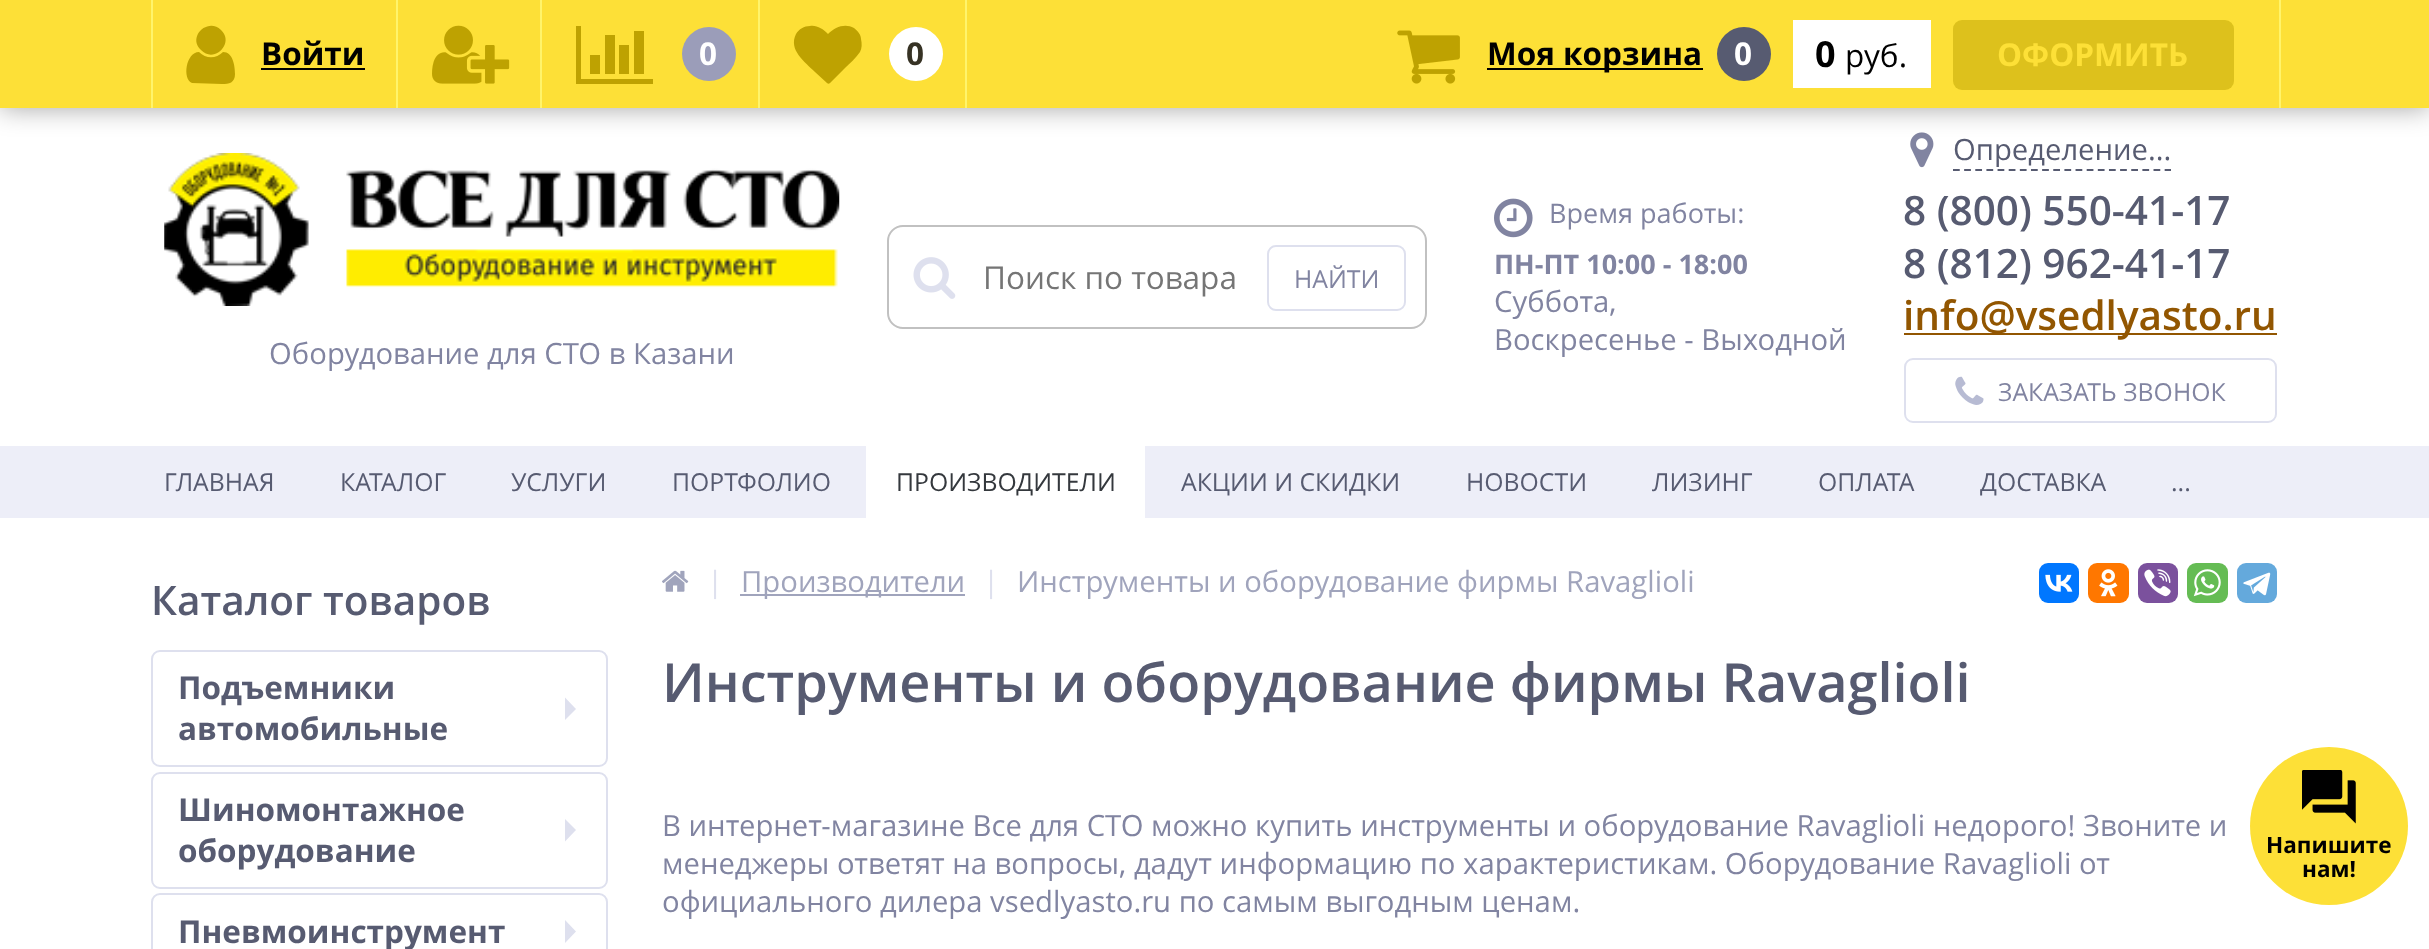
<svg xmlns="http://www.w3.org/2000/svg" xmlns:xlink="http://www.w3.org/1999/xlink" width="2429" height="949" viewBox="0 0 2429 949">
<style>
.cls-1{font:bold 31.5px Open Sans;fill:#000000}
.cls-2{font:bold 31.5px Open Sans;fill:#ffffff}
.cls-3{font:bold 31.5px Open Sans;fill:#363224}
.cls-4{font:bold 36px Open Sans;fill:#000000}
.cls-5{font:31.5px Open Sans;fill:#000000}
.cls-6{font:bold 31.5px Open Sans;fill:#fde037}
.cls-7{font:31.5px Open Sans;fill:#757575}
.cls-8{font:24.75px Open Sans;fill:#8184a1}
.cls-9{font:27px Open Sans;fill:#8184a1}
.cls-10{font:bold 27px Open Sans;fill:#8184a1}
.cls-11{font:29.25px Open Sans;fill:#8184a1}
.cls-12{font:29.25px Open Sans;fill:#575b71}
.cls-13{font:600 40.5px Open Sans;fill:#575b71}
.cls-14{font:600 40.5px Open Sans;fill:#925601}
.cls-15{font:24.75px Open Sans;fill:#575b71}
.cls-16{font:24.75px Open Sans;fill:#34383d}
.cls-17{font:bold 31.5px Open Sans;fill:#575b71}
.cls-18{font:29.25px Open Sans;fill:#dee0ee}
.cls-19{font:29.25px Open Sans;fill:#a0a4bc}
.cls-20{font:600 54px Open Sans;fill:#575b71}
.cls-21{font:bold 22.5px Open Sans;fill:#000000}
</style>
<rect width="100%" height="100%" fill="#edeef8"/>
<rect fill="#ffffff" x="0" y="108" width="2429" height="338"/>
<image xlink:href="image4.png" x="1910" y="132" width="24" height="36"/>
<rect fill="#000000" fill-opacity="0.36" filter="blur(13.5px)" x="0" y="0" width="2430" height="108"/>
<rect fill="#fde037" x="0" y="0" width="2429" height="108"/>
<rect fill="#fff46b" x="2279" y="0" width="2" height="108"/>
<rect fill="#fff46b" x="151" y="0" width="2" height="108"/>
<rect fill="#fff46b" x="396" y="0" width="2" height="108"/>
<path fill="#bea201" d="M235 74C235 83 229 84 222 84L192 83C182 79 186 52 199 52C206 59 216 59 223 52C233 52 235 66 235 74ZM221 30C235 43 214 64 201 50C187 37 208 17 221 30Z"/>
<rect fill="#000000" x="261" y="68" width="104" height="2"/>
<rect fill="#fff46b" x="540" y="0" width="2" height="108"/>
<image xlink:href="image0.png" x="432" y="25" width="78" height="59"/>
<rect fill="#fff46b" x="758" y="0" width="2" height="108"/>
<path fill="#bea201" d="M600 55V74H590V55ZM615 35V74H605V35ZM653 79V84H576V26H581V79ZM629 45V74H619V45ZM644 31V74H634V31Z"/>
<circle fill="#9b9db9" cx="709" cy="54" r="27"/>
<rect fill="#fff46b" x="965" y="0" width="2" height="108"/>
<path fill="#bea201" d="M830 83C829 84 828 84 827 83L815 72C805 62 788 50 796 34C799 29 804 26 810 26C817 25 823 29 828 34C835 27 845 23 854 28C858 31 861 35 861 39C862 44 862 48 860 52C856 58 850 63 845 68Z"/>
<circle fill="#ffffff" cx="916" cy="54" r="27"/>
<image xlink:href="image1.png" x="1397" y="30" width="63" height="54"/>
<rect fill="#000000" x="1487" y="68" width="216" height="2"/>
<circle fill="#575b71" cx="1744" cy="54" r="27"/>
<rect fill="#ffffff" x="1793" y="20" width="138" height="68"/>
<rect fill="#ddc11c" x="1953" y="20" width="281" height="70" rx="9"/>
<rect fill="none" stroke="#c1c1c1" stroke-width="2" x="888" y="226" width="538" height="102" rx="15"/>
<image xlink:href="image2.png" x="913" y="257" width="43" height="42"/>
<rect fill="none" stroke="#dee0ee" stroke-width="2" x="1268" y="246" width="137" height="64" rx="8"/>
<image xlink:href="image3.png" x="1494" y="198" width="39" height="40"/>
<path fill="none" stroke="#575b71" stroke-width="2.2" stroke-dasharray="6.75 4.39" d="M1953 170H2171"/>
<rect fill="#925601" x="1904" y="333" width="373" height="2"/>
<rect fill="none" stroke="#dee0ee" stroke-width="2" x="1905" y="359" width="371" height="63" rx="8"/>
<image xlink:href="image5.png" x="1955" y="376" width="29" height="29"/>
<image xlink:href="image6.png" x="164" y="153" width="676" height="153"/>
<rect fill="#ffffff" x="866" y="446" width="279" height="72"/>
<rect fill="#ffffff" x="0" y="518" width="2429" height="431"/>
<rect fill="none" stroke="#dee0ee" stroke-width="2" x="152" y="651" width="455" height="115" rx="8"/>
<path fill="#dee0ee" d="M565 720V697.5L576 709Z"/>
<rect fill="none" stroke="#dee0ee" stroke-width="2" x="152" y="773" width="455" height="115" rx="8"/>
<path fill="#dee0ee" d="M565 841.5V819L576 830Z"/>
<rect fill="none" stroke="#dee0ee" stroke-width="2" x="152" y="894" width="455" height="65" rx="8"/>
<path fill="#dee0ee" d="M565 943V920L576 931.5Z"/>
<image xlink:href="image7.png" x="662" y="570" width="27" height="22"/>
<rect fill="#a0a4bc" x="740" y="594" width="225" height="2"/>
<rect fill="#0077ff" x="2039" y="563" width="40" height="40" rx="9"/>
<image xlink:href="image8.png" x="2045" y="574" width="28" height="18"/>
<rect fill="#ff7700" x="2088" y="563" width="41" height="40" rx="9"/>
<image xlink:href="image9.png" x="2099" y="569" width="19" height="28"/>
<rect fill="#7b519d" x="2138" y="563" width="40" height="40" rx="9"/>
<image xlink:href="image10.png" x="2144" y="569" width="27" height="28"/>
<rect fill="#65bc54" x="2187" y="563" width="41" height="40" rx="9"/>
<image xlink:href="image11.png" x="2193" y="569" width="28" height="28"/>
<rect fill="#64a9dc" x="2237" y="563" width="40" height="40" rx="9"/>
<image xlink:href="image12.png" x="2243" y="572" width="28" height="24"/>
<circle fill="#fde037" cx="2329" cy="826" r="79"/>
<image xlink:href="image13.png" x="2302" y="770" width="54" height="54"/>
<text class="cls-1" x="261" y="65">Войти</text>
<text class="cls-2" x="699" y="65">0</text>
<text class="cls-3" x="906" y="65">0</text>
<text class="cls-1" x="1487" y="65">Моя корзина</text>
<text class="cls-2" x="1734" y="65">0</text>
<text class="cls-4" x="1815" y="67">0</text>
<text class="cls-5" x="1845" y="67">руб.</text>
<text class="cls-6" x="1997" y="66">ОФОРМИТЬ</text>
<text class="cls-7" x="983" y="289">Поиск по товара</text>
<text class="cls-8" x="1294" y="288">НАЙТИ</text>
<text class="cls-9" x="1549" y="223">Время работы:</text>
<text class="cls-10" x="1494" y="274">ПН-ПТ 10:00 - 18:00</text>
<text class="cls-11"><tspan x="1494" y="312">Суббота,</tspan><tspan x="1494" y="350">Воскресенье - Выходной</tspan></text>
<text class="cls-12" x="1953" y="160">Определение...</text>
<text class="cls-13"><tspan x="1903" y="225">8 (800) 550-41-17</tspan><tspan x="1903" y="278">8 (812) 962-41-17</tspan></text>
<text class="cls-14" x="1903" y="330">info@vsedlyasto.ru</text>
<text class="cls-8" x="1998" y="401">ЗАКАЗАТЬ ЗВОНОК</text>
<text class="cls-11" x="269" y="364">Оборудование для СТО в Казани</text>
<text class="cls-15" x="164" y="491">ГЛАВНАЯ</text>
<text class="cls-15" x="340" y="491">КАТАЛОГ</text>
<text class="cls-15" x="511" y="491">УСЛУГИ</text>
<text class="cls-15" x="672" y="491">ПОРТФОЛИО</text>
<text class="cls-16" x="896" y="491">ПРОИЗВОДИТЕЛИ</text>
<text class="cls-15" x="1181" y="491">АКЦИИ И СКИДКИ</text>
<text class="cls-15" x="1466" y="491">НОВОСТИ</text>
<text class="cls-15" x="1652" y="491">ЛИЗИНГ</text>
<text class="cls-15" x="1818" y="491">ОПЛАТА</text>
<text class="cls-15" x="1980" y="491">ДОСТАВКА</text>
<text class="cls-15" x="2171" y="491">...</text>
<text class="cls-13" x="151" y="615">Каталог товаров</text>
<text class="cls-17"><tspan x="178" y="699">Подъемники</tspan><tspan x="178" y="740">автомобильные</tspan></text>
<text class="cls-17"><tspan x="178" y="821">Шиномонтажное</tspan><tspan x="178" y="862">оборудование</tspan></text>
<text class="cls-17" x="178" y="943">Пневмоинструмент</text>
<text class="cls-18" x="707" y="592">|</text>
<text class="cls-19" x="741" y="592">Производители</text>
<text class="cls-18" x="983" y="592">|</text>
<text class="cls-19" x="1017" y="592">Инструменты и оборудование фирмы Ravaglioli</text>
<text class="cls-20" x="662" y="702">Инструменты и оборудование фирмы Ravaglioli</text>
<text class="cls-11"><tspan x="662" y="836">В интернет-магазине Все для СТО можно купить инструменты и оборудование Ravaglioli недорого! Звоните и</tspan><tspan x="662" y="874">менеджеры ответят на вопросы, дадут информацию по характеристикам. Оборудование Ravaglioli от</tspan><tspan x="662" y="912">официального дилера vsedlyasto.ru по самым выгодным ценам.</tspan></text>
<text class="cls-21" x="2266" y="853">Напишите</text>
<text class="cls-21" x="2302" y="877">нам!</text>
</svg>
